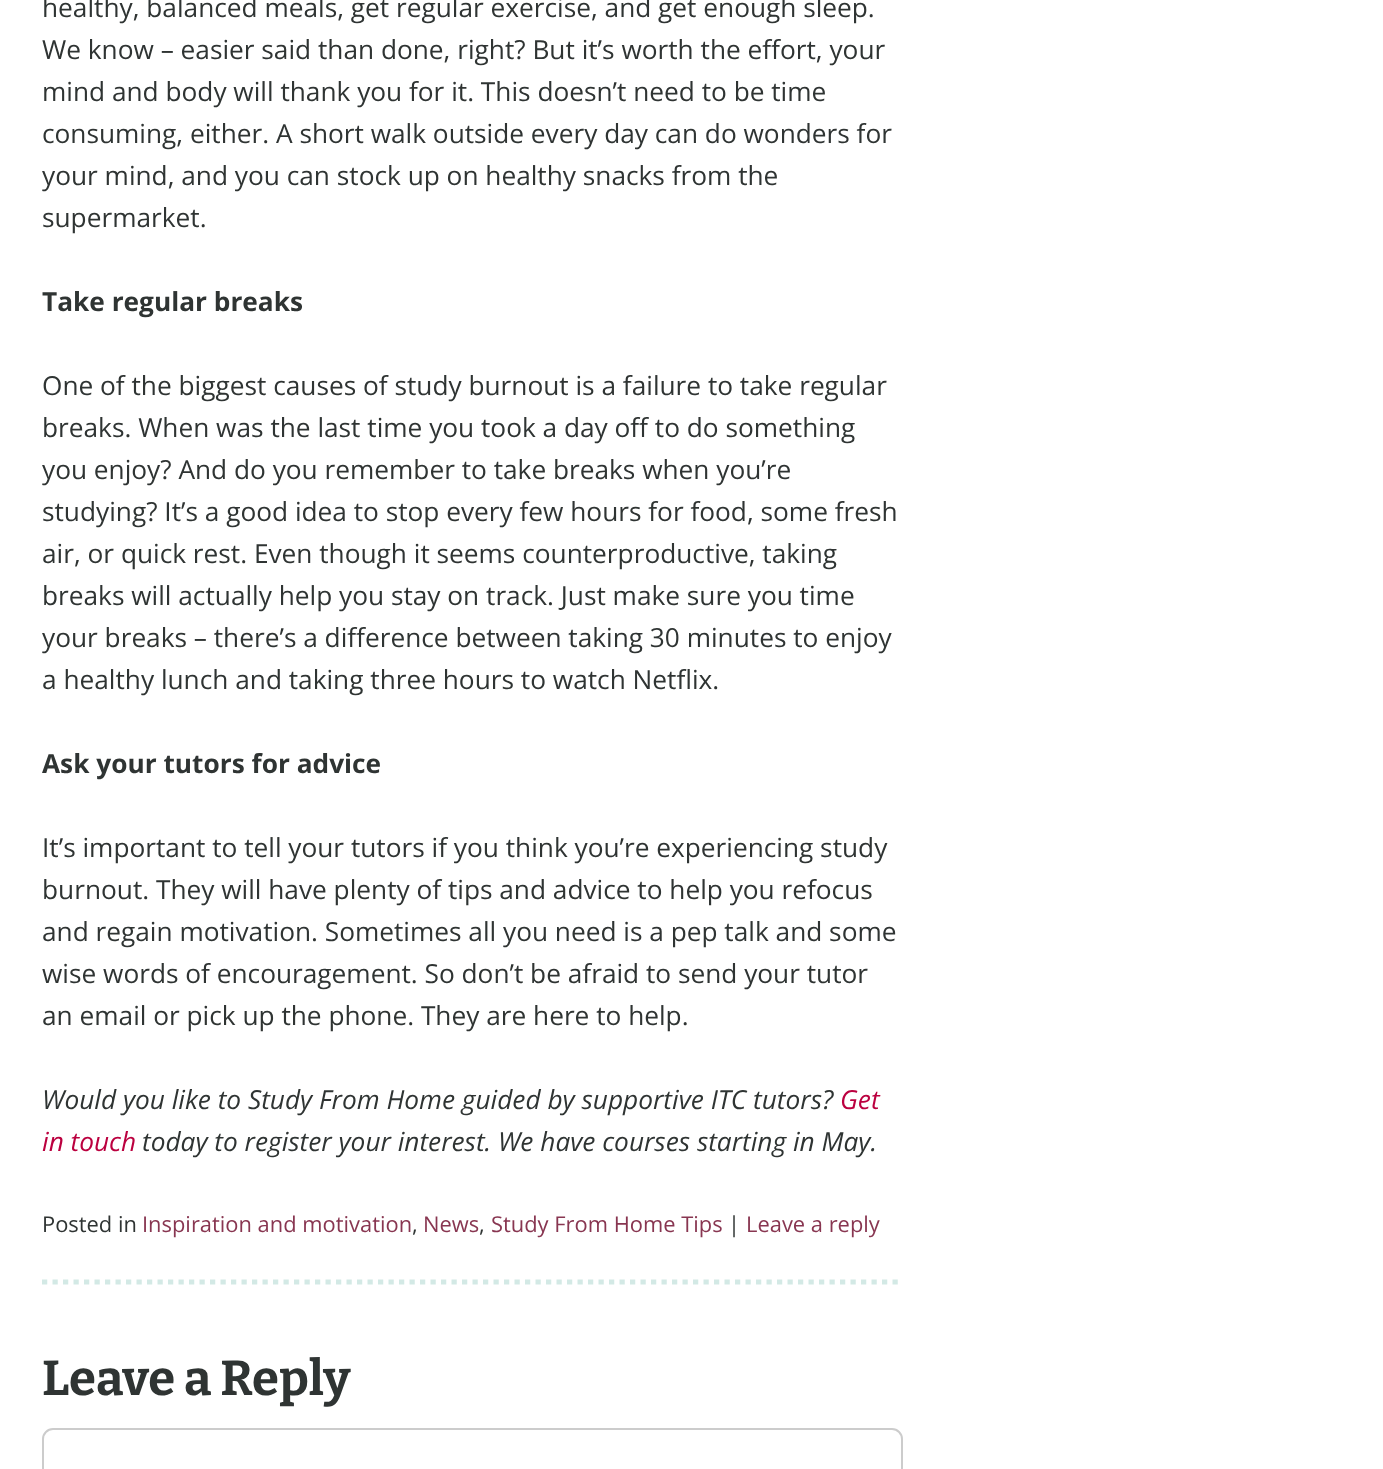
<svg xmlns="http://www.w3.org/2000/svg" xmlns:xlink="http://www.w3.org/1999/xlink" width="1383" height="1469" viewBox="0 0 1383 1469">
<style>
.cls-1{font:26.25px Open Sans;fill:#2f3433}
.cls-2{font:bold 26.25px Open Sans;fill:#2f3433}
.cls-3{font:italic 26.25px Open Sans;fill:#2f3433}
.cls-4{font:italic 26.25px Open Sans;fill:#bb003f}
.cls-5{font:21.9px Open Sans;fill:#2f3433}
.cls-6{font:21.9px Open Sans;fill:#883651}
.cls-7{font:100 49px Bitter;fill:#2f3433}
</style>
<rect width="100%" height="100%" fill="#ffffff"/>
<path fill="none" stroke="#d3e9e5" stroke-width="5.2" stroke-dasharray="5.25 5.25" d="M42 1282H899.5"/>
<rect fill="none" stroke="#cccccc" stroke-width="2" x="43" y="1429" width="859" height="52" rx="10"/>
<text class="cls-1"><tspan x="42" y="17">healthy, balanced meals, get regular exercise, and get enough sleep.</tspan><tspan x="42" y="59">We know – easier said than done, right? But it’s worth the effort, your</tspan><tspan x="42" y="101">mind and body will thank you for it. This doesn’t need to be time</tspan><tspan x="42" y="143">consuming, either. A short walk outside every day can do wonders for</tspan><tspan x="42" y="185">your mind, and you can stock up on healthy snacks from the</tspan><tspan x="42" y="227">supermarket.</tspan></text>
<text class="cls-2" x="42" y="311">Take regular breaks</text>
<text class="cls-1"><tspan x="42" y="395">One of the biggest causes of study burnout is a failure to take regular</tspan><tspan x="42" y="437">breaks. When was the last time you took a day off to do something</tspan><tspan x="42" y="479">you enjoy? And do you remember to take breaks when you’re</tspan><tspan x="42" y="521">studying? It’s a good idea to stop every few hours for food, some fresh</tspan><tspan x="42" y="563">air, or quick rest. Even though it seems counterproductive, taking</tspan><tspan x="42" y="605">breaks will actually help you stay on track. Just make sure you time</tspan><tspan x="42" y="647">your breaks – there’s a difference between taking 30 minutes to enjoy</tspan><tspan x="42" y="689">a healthy lunch and taking three hours to watch Netflix.</tspan></text>
<text class="cls-2" x="42" y="773">Ask your tutors for advice</text>
<text class="cls-1"><tspan x="42" y="857">It’s important to tell your tutors if you think you’re experiencing study</tspan><tspan x="42" y="899">burnout. They will have plenty of tips and advice to help you refocus</tspan><tspan x="42" y="941">and regain motivation. Sometimes all you need is a pep talk and some</tspan><tspan x="42" y="983">wise words of encouragement. So don’t be afraid to send your tutor</tspan><tspan x="42" y="1025">an email or pick up the phone. They are here to help.</tspan></text>
<text class="cls-3" x="42" y="1109">Would you like to Study From Home guided by supportive ITC tutors?</text>
<text class="cls-4" x="840" y="1109">Get</text>
<text class="cls-4" x="42" y="1151">in touch</text>
<text class="cls-3" x="142" y="1151">today to register your interest. We have courses starting in May.</text>
<text class="cls-5" x="42" y="1232">Posted in</text>
<text class="cls-6" x="142" y="1232">Inspiration and motivation</text>
<text class="cls-5" x="412" y="1232">,</text>
<text class="cls-6" x="423" y="1232">News</text>
<text class="cls-5" x="479" y="1232">,</text>
<text class="cls-6" x="491" y="1232">Study From Home Tips</text>
<text class="cls-5" x="728" y="1232">|</text>
<text class="cls-6" x="746" y="1232">Leave a reply</text>
<text class="cls-7" x="42" y="1395">Leave a Reply</text>
</svg>
